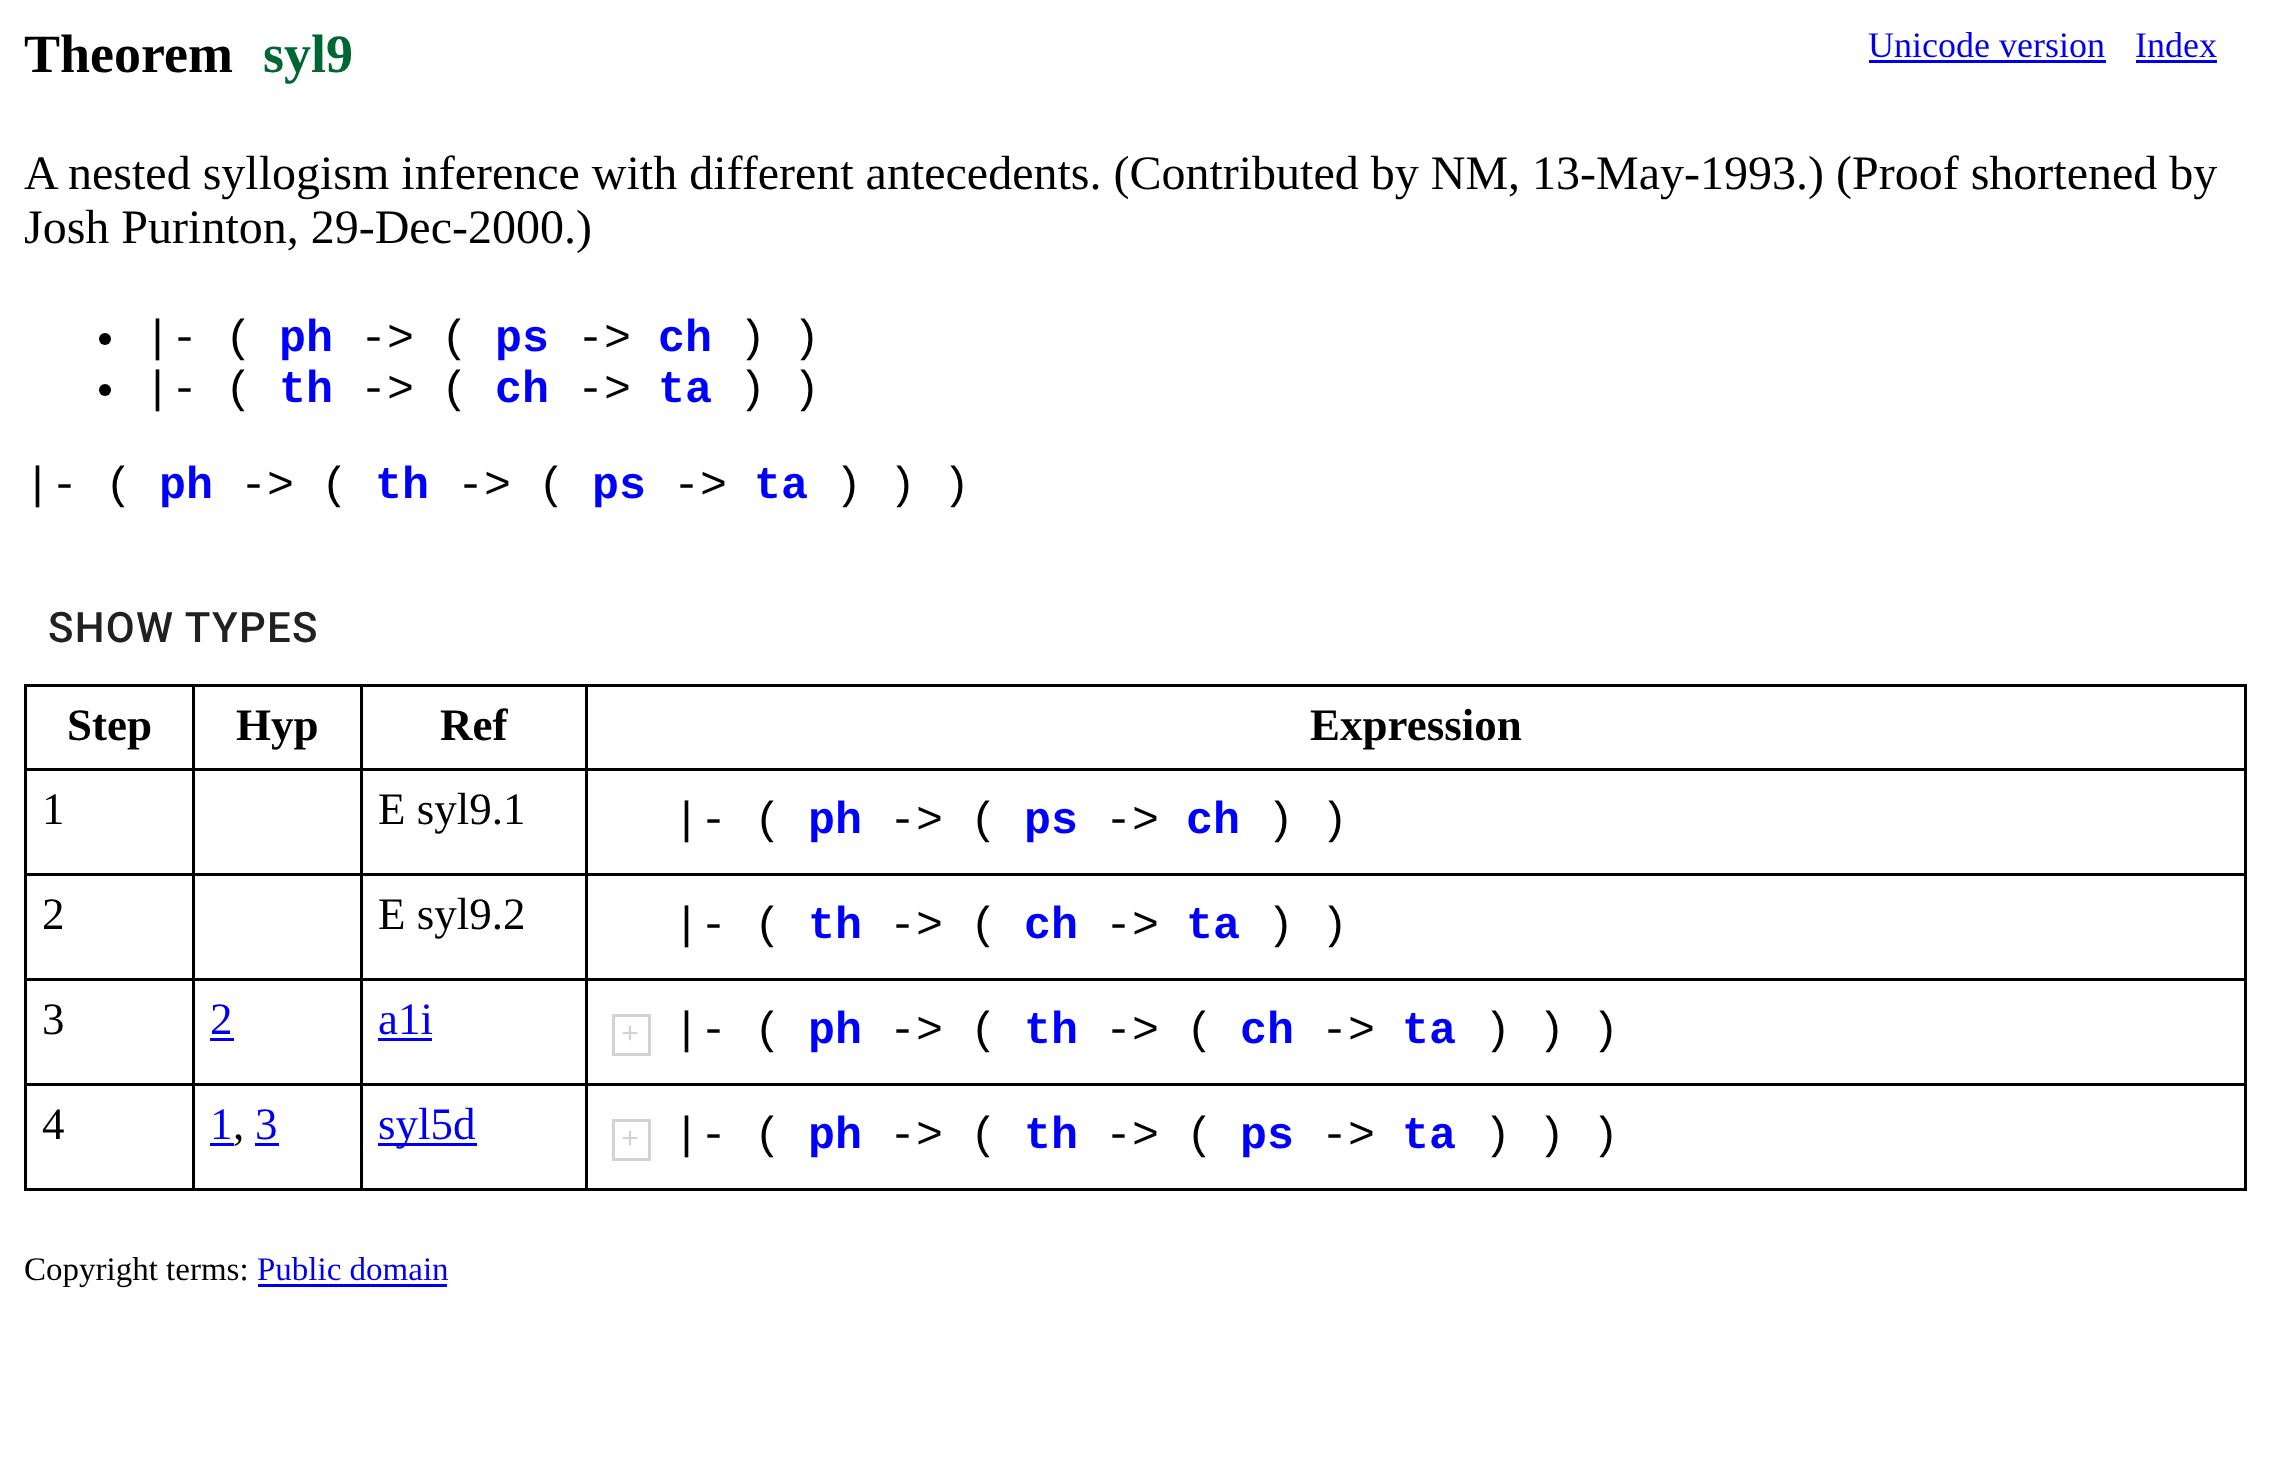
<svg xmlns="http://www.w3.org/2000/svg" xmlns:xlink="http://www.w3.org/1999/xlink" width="2271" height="1457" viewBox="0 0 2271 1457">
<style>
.cls-1{font:bold 54px Liberation Serif;fill:#000000}
.cls-2{font:bold 54px Liberation Serif;fill:#006633}
.cls-3{font:36px Liberation Serif;fill:#0000ee}
.cls-4{font:48px Liberation Serif;fill:#000000}
.cls-5{font:45px Liberation Mono;fill:#000000}
.cls-6{font:bold 45px Liberation Mono;fill:#0000ff}
.cls-7{font:500 42px Roboto;letter-spacing:1.25px;fill:#212121}
.cls-8{font:bold 45px Liberation Serif;fill:#000000}
.cls-9{font:45px Liberation Serif;fill:#000000}
.cls-10{font:45px Liberation Serif;fill:#0000ee}
.cls-11{font:30px Liberation Mono;fill:#d3d3d3}
.cls-12{font:33px Liberation Serif;fill:#000000}
.cls-13{font:33px Liberation Serif;fill:#0000ee}
</style>
<rect width="100%" height="100%" fill="#ffffff"/>
<rect fill="#0000ee" x="1869" y="60" width="237" height="3"/>
<rect fill="#0000ee" x="2136" y="60" width="81" height="3"/>
<circle fill="#000000" cx="105" cy="339" r="6"/>
<circle fill="#000000" cx="105" cy="390" r="6"/>
<rect fill="#000000" x="585" y="684" width="1662" height="3"/>
<rect fill="#000000" x="585" y="768" width="1662" height="3"/>
<rect fill="#000000" x="585" y="873" width="1662" height="3"/>
<rect fill="#000000" x="585" y="978" width="1662" height="3"/>
<rect fill="#000000" x="585" y="1083" width="1662" height="3"/>
<rect fill="#000000" x="2244" y="1083" width="3" height="108"/>
<rect fill="#000000" x="585" y="1188" width="1662" height="3"/>
<rect fill="#000000" x="585" y="1083" width="3" height="108"/>
<rect fill="#000000" x="360" y="1083" width="228" height="3"/>
<rect fill="#000000" x="585" y="978" width="3" height="108"/>
<rect fill="#000000" x="360" y="978" width="228" height="3"/>
<rect fill="#000000" x="585" y="873" width="3" height="108"/>
<rect fill="#000000" x="360" y="873" width="228" height="3"/>
<rect fill="#000000" x="585" y="768" width="3" height="108"/>
<rect fill="#000000" x="360" y="768" width="228" height="3"/>
<rect fill="#000000" x="585" y="684" width="3" height="87"/>
<rect fill="#000000" x="360" y="684" width="228" height="3"/>
<rect fill="#000000" x="360" y="1188" width="228" height="3"/>
<rect fill="#000000" x="360" y="1083" width="3" height="108"/>
<rect fill="#000000" x="192" y="1083" width="171" height="3"/>
<rect fill="#000000" x="360" y="978" width="3" height="108"/>
<rect fill="#000000" x="192" y="978" width="171" height="3"/>
<rect fill="#000000" x="360" y="873" width="3" height="108"/>
<rect fill="#000000" x="192" y="873" width="171" height="3"/>
<rect fill="#000000" x="360" y="768" width="3" height="108"/>
<rect fill="#000000" x="192" y="768" width="171" height="3"/>
<rect fill="#000000" x="360" y="684" width="3" height="87"/>
<rect fill="#000000" x="192" y="684" width="171" height="3"/>
<rect fill="#000000" x="192" y="1188" width="171" height="3"/>
<rect fill="#000000" x="192" y="1083" width="3" height="108"/>
<rect fill="#000000" x="24" y="1083" width="171" height="3"/>
<rect fill="#000000" x="192" y="978" width="3" height="108"/>
<rect fill="#000000" x="24" y="978" width="171" height="3"/>
<rect fill="#000000" x="192" y="873" width="3" height="108"/>
<rect fill="#000000" x="24" y="873" width="171" height="3"/>
<rect fill="#000000" x="192" y="768" width="3" height="108"/>
<rect fill="#000000" x="24" y="768" width="171" height="3"/>
<rect fill="#000000" x="192" y="684" width="3" height="87"/>
<rect fill="#000000" x="24" y="684" width="171" height="3"/>
<rect fill="#000000" x="24" y="1188" width="171" height="3"/>
<rect fill="#000000" x="24" y="1083" width="3" height="108"/>
<rect fill="#000000" x="24" y="978" width="3" height="108"/>
<rect fill="#000000" x="24" y="873" width="3" height="108"/>
<rect fill="#000000" x="24" y="768" width="3" height="108"/>
<rect fill="#000000" x="24" y="684" width="3" height="87"/>
<rect fill="#000000" x="2244" y="978" width="3" height="108"/>
<rect fill="#000000" x="2244" y="873" width="3" height="108"/>
<rect fill="#000000" x="2244" y="768" width="3" height="108"/>
<rect fill="#000000" x="2244" y="684" width="3" height="87"/>
<rect fill="#0000ee" x="210" y="1038" width="24" height="3"/>
<rect fill="#0000ee" x="378" y="1038" width="54" height="3"/>
<rect fill="none" stroke="#d3d3d3" stroke-width="3" x="613.5" y="1015.5" width="36" height="39"/>
<rect fill="#0000ee" x="210" y="1143" width="24" height="3"/>
<rect fill="#0000ee" x="255" y="1143" width="24" height="3"/>
<rect fill="#0000ee" x="378" y="1143" width="99" height="3"/>
<rect fill="none" stroke="#d3d3d3" stroke-width="3" x="613.5" y="1120.5" width="36" height="39"/>
<rect fill="#0000ee" x="258" y="1284" width="189" height="3"/>
<text class="cls-1" x="24" y="72">Theorem</text>
<text class="cls-2" x="263" y="72">syl9</text>
<text class="cls-3" x="1868" y="57">Unicode version</text>
<text class="cls-3" x="2135" y="57">Index</text>
<text class="cls-4"><tspan x="24" y="189">A nested syllogism inference with different antecedents. (Contributed by NM, 13-May-1993.) (Proof shortened by</tspan><tspan x="24" y="243">Josh Purinton, 29-Dec-2000.)</tspan></text>
<text class="cls-5" x="144" y="351">|- (</text>
<text class="cls-6" x="279" y="351">ph</text>
<text class="cls-5" x="360" y="351">-&gt; (</text>
<text class="cls-6" x="495" y="351">ps</text>
<text class="cls-5" x="577" y="351">-&gt;</text>
<text class="cls-6" x="658" y="351">ch</text>
<text class="cls-5" x="739" y="351">) )</text>
<text class="cls-5" x="144" y="402">|- (</text>
<text class="cls-6" x="279" y="402">th</text>
<text class="cls-5" x="360" y="402">-&gt; (</text>
<text class="cls-6" x="495" y="402">ch</text>
<text class="cls-5" x="577" y="402">-&gt;</text>
<text class="cls-6" x="658" y="402">ta</text>
<text class="cls-5" x="739" y="402">) )</text>
<text class="cls-5" x="24" y="498">|- (</text>
<text class="cls-6" x="159" y="498">ph</text>
<text class="cls-5" x="240" y="498">-&gt; (</text>
<text class="cls-6" x="375" y="498">th</text>
<text class="cls-5" x="457" y="498">-&gt; (</text>
<text class="cls-6" x="592" y="498">ps</text>
<text class="cls-5" x="673" y="498">-&gt;</text>
<text class="cls-6" x="754" y="498">ta</text>
<text class="cls-5" x="835" y="498">) ) )</text>
<text class="cls-7" x="48" y="642">SHOW TYPES</text>
<text class="cls-8" x="67" y="740">Step</text>
<text class="cls-8" x="236" y="740">Hyp</text>
<text class="cls-8" x="440" y="740">Ref</text>
<text class="cls-8" x="1310" y="740">Expression</text>
<text class="cls-9" x="42" y="824">1</text>
<text class="cls-9" x="378" y="824">E syl9.1</text>
<text class="cls-5" x="673" y="833">|- (</text>
<text class="cls-6" x="808" y="833">ph</text>
<text class="cls-5" x="889" y="833">-&gt; (</text>
<text class="cls-6" x="1024" y="833">ps</text>
<text class="cls-5" x="1105" y="833">-&gt;</text>
<text class="cls-6" x="1186" y="833">ch</text>
<text class="cls-5" x="1267" y="833">) )</text>
<text class="cls-9" x="42" y="929">2</text>
<text class="cls-9" x="378" y="929">E syl9.2</text>
<text class="cls-5" x="673" y="938">|- (</text>
<text class="cls-6" x="808" y="938">th</text>
<text class="cls-5" x="889" y="938">-&gt; (</text>
<text class="cls-6" x="1024" y="938">ch</text>
<text class="cls-5" x="1105" y="938">-&gt;</text>
<text class="cls-6" x="1186" y="938">ta</text>
<text class="cls-5" x="1267" y="938">) )</text>
<text class="cls-9" x="42" y="1034">3</text>
<text class="cls-10" x="210" y="1034">2</text>
<text class="cls-10" x="378" y="1034">a1i</text>
<text class="cls-11" x="621" y="1043">+</text>
<text class="cls-5" x="673" y="1043">|- (</text>
<text class="cls-6" x="808" y="1043">ph</text>
<text class="cls-5" x="889" y="1043">-&gt; (</text>
<text class="cls-6" x="1024" y="1043">th</text>
<text class="cls-5" x="1105" y="1043">-&gt; (</text>
<text class="cls-6" x="1240" y="1043">ch</text>
<text class="cls-5" x="1321" y="1043">-&gt;</text>
<text class="cls-6" x="1402" y="1043">ta</text>
<text class="cls-5" x="1484" y="1043">) ) )</text>
<text class="cls-9" x="42" y="1139">4</text>
<text class="cls-10" x="210" y="1139">1</text>
<text class="cls-9" x="233" y="1139">,</text>
<text class="cls-10" x="255" y="1139">3</text>
<text class="cls-10" x="378" y="1139">syl5d</text>
<text class="cls-11" x="621" y="1148">+</text>
<text class="cls-5" x="673" y="1148">|- (</text>
<text class="cls-6" x="808" y="1148">ph</text>
<text class="cls-5" x="889" y="1148">-&gt; (</text>
<text class="cls-6" x="1024" y="1148">th</text>
<text class="cls-5" x="1105" y="1148">-&gt; (</text>
<text class="cls-6" x="1240" y="1148">ps</text>
<text class="cls-5" x="1321" y="1148">-&gt;</text>
<text class="cls-6" x="1402" y="1148">ta</text>
<text class="cls-5" x="1484" y="1148">) ) )</text>
<text class="cls-12" x="24" y="1280">Copyright terms:</text>
<text class="cls-13" x="257" y="1280">Public domain</text>
</svg>
